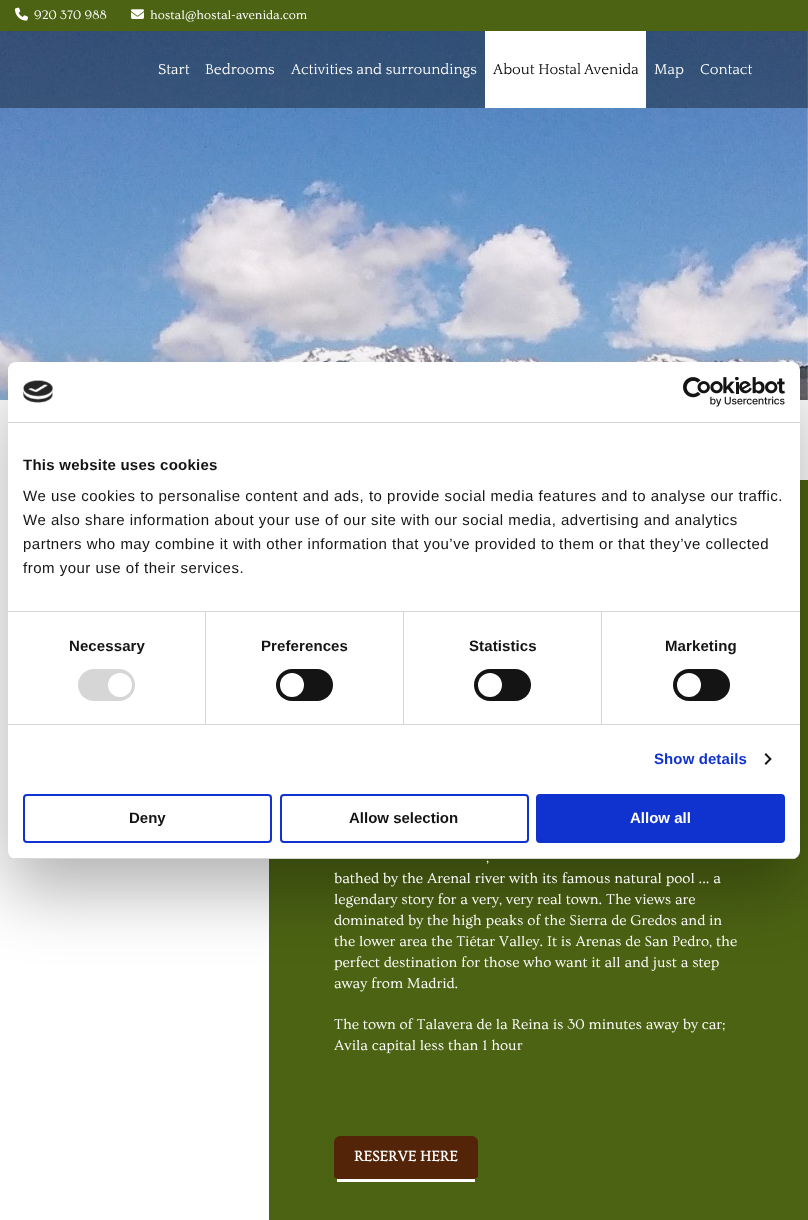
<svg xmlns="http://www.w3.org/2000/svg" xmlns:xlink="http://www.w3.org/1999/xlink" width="808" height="1220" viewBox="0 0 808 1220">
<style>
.cls-1{font:13px Ovo;fill:#ffffff}
.cls-2{font:15px Quattrocento;fill:#ffffff}
.cls-3{font:15px Quattrocento;fill:#000000}
.cls-4{font:15px Ovo;fill:#ffffff}
.cls-5{font:bold 15px Ovo;fill:#ffffff}
.cls-6{font:bold 15px Liberation Sans;letter-spacing:0.25px;fill:#141414}
.cls-7{font:15px Liberation Sans;letter-spacing:0.5px;fill:#141414}
.cls-8{font:bold 15px Liberation Sans;letter-spacing:0.1px;fill:#141414}
.cls-9{font:bold 15px Liberation Sans;letter-spacing:0.1px;fill:#1032cf}
.cls-10{font:bold 15px Liberation Sans;fill:#141414}
.cls-11{font:bold 15px Liberation Sans;fill:#ffffff}
</style>
<defs>
<clipPath id="clip1"><rect x="8" y="362" width="792" height="497" rx="8"/></clipPath>
</defs>
<rect width="100%" height="100%" fill="#ffffff"/>
<rect fill="#4c6313" x="0" y="0" width="808" height="31"/>
<image xlink:href="image0.png" x="15" y="7" width="13" height="14"/>
<image xlink:href="image1.png" x="131" y="9" width="13" height="10"/>
<image xlink:href="image2.png" x="0" y="31" width="808" height="369"/>
<rect fill="#000000" fill-opacity="0.36" x="0" y="31" width="808" height="77"/>
<rect fill="#ffffff" x="485" y="31" width="161" height="77"/>
<rect fill="#4c6313" x="269" y="480" width="539" height="740"/>
<path fill="#532407" d="M340 1136H472C475 1136 478 1139 478 1142V1176C478 1178 475 1179 472 1179H340C337 1179 334 1178 334 1176V1142C334 1139 337 1136 340 1136Z"/>
<rect fill="#ffffff" x="337" y="1179" width="138" height="3"/>
<rect fill="#000000" fill-opacity="0.3" filter="blur(34px)" x="8" y="394" width="792" height="497" rx="8"/>
<rect fill="#ffffff" x="8" y="362" width="792" height="497" rx="8"/>
<rect fill="#d6d6d6" x="8" y="422" width="792" height="1"/>
<image xlink:href="image3.png" x="23" y="380" width="30" height="23"/>
<image xlink:href="image4.png" x="683" y="377" width="102" height="30"/>
<rect fill="#d6d6d6" x="8" y="611" width="792" height="1"/>
<rect fill="#d6d6d6" x="8" y="724" width="792" height="1"/>
<rect fill="#d6d6d6" x="205" y="612" width="1" height="112"/>
<rect fill="#d6d6d6" x="78" y="669" width="57" height="32" rx="16"/>
<circle fill="#ffffff" cx="120" cy="685" r="12"/>
<rect fill="#d6d6d6" x="403" y="612" width="1" height="112"/>
<rect fill="#141414" x="276" y="669" width="57" height="32" rx="16"/>
<circle fill="#ffffff" cx="292" cy="685" r="12"/>
<rect fill="#d6d6d6" x="601" y="612" width="1" height="112"/>
<rect fill="#141414" x="474" y="669" width="57" height="32" rx="16"/>
<circle fill="#ffffff" cx="490" cy="685" r="12"/>
<rect fill="#141414" x="673" y="669" width="57" height="32" rx="16"/>
<circle fill="#ffffff" cx="689" cy="685" r="12"/>
<path fill="#141414" d="M766 753L771.5 759L770.5 760.5L764.5 754.5Z"/>
<path fill="#141414" d="M770.5 757.5L771.5 759L766 765L764.5 763.5Z"/>
<g clip-path="url(#clip1)">
<rect fill="#d6d6d6" x="8" y="858" width="792" height="1"/>
</g>
<rect fill="none" stroke="#1032cf" stroke-width="2" x="24" y="795" width="247" height="47" rx="3"/>
<rect fill="none" stroke="#1032cf" stroke-width="2" x="281" y="795" width="247" height="47" rx="3"/>
<rect fill="#1032cf" stroke="#1032cf" stroke-width="2" x="537" y="795" width="247" height="47" rx="3"/>
<text class="cls-1" x="34" y="19">920 370 988</text>
<text class="cls-1" x="150" y="19">hostal@hostal-avenida.com</text>
<text class="cls-2" x="158" y="74">Start</text>
<text class="cls-2" x="205" y="74">Bedrooms</text>
<text class="cls-2" x="291" y="74">Activities and surroundings</text>
<text class="cls-3" x="493" y="74">About Hostal Avenida</text>
<text class="cls-2" x="654" y="74">Map</text>
<text class="cls-2" x="700" y="74">Contact</text>
<text class="cls-4" x="486" y="862">,</text>
<text class="cls-4"><tspan x="334" y="883">bathed by the Arenal river with its famous natural pool ... a</tspan><tspan x="334" y="904">legendary story for a very, very real town. The views are</tspan><tspan x="334" y="925">dominated by the high peaks of the Sierra de Gredos and in</tspan><tspan x="334" y="946">the lower area the Tiétar Valley. It is Arenas de San Pedro, the</tspan><tspan x="334" y="967">perfect destination for those who want it all and just a step</tspan><tspan x="334" y="988">away from Madrid.</tspan></text>
<text class="cls-4"><tspan x="334" y="1029">The town of Talavera de la Reina is 30 minutes away by car;</tspan><tspan x="334" y="1050">Avila capital less than 1 hour</tspan></text>
<text class="cls-5" x="354" y="1161">RESERVE HERE</text>
<text class="cls-6" x="23" y="470">This website uses cookies</text>
<text class="cls-7"><tspan x="23" y="501">We use cookies to personalise content and ads, to provide social media features and to analyse our traffic.</tspan><tspan x="23" y="525">We also share information about your use of our site with our social media, advertising and analytics</tspan><tspan x="23" y="549">partners who may combine it with other information that you’ve provided to them or that they’ve collected</tspan><tspan x="23" y="573">from your use of their services.</tspan></text>
<text class="cls-8" x="69" y="651">Necessary</text>
<text class="cls-8" x="261" y="651">Preferences</text>
<text class="cls-8" x="469" y="651">Statistics</text>
<text class="cls-8" x="665" y="651">Marketing</text>
<text class="cls-9" x="654" y="764">Show details</text>
<text class="cls-10" x="129" y="823">Deny</text>
<text class="cls-10" x="349" y="823">Allow selection</text>
<text class="cls-11" x="630" y="823">Allow all</text>
</svg>
